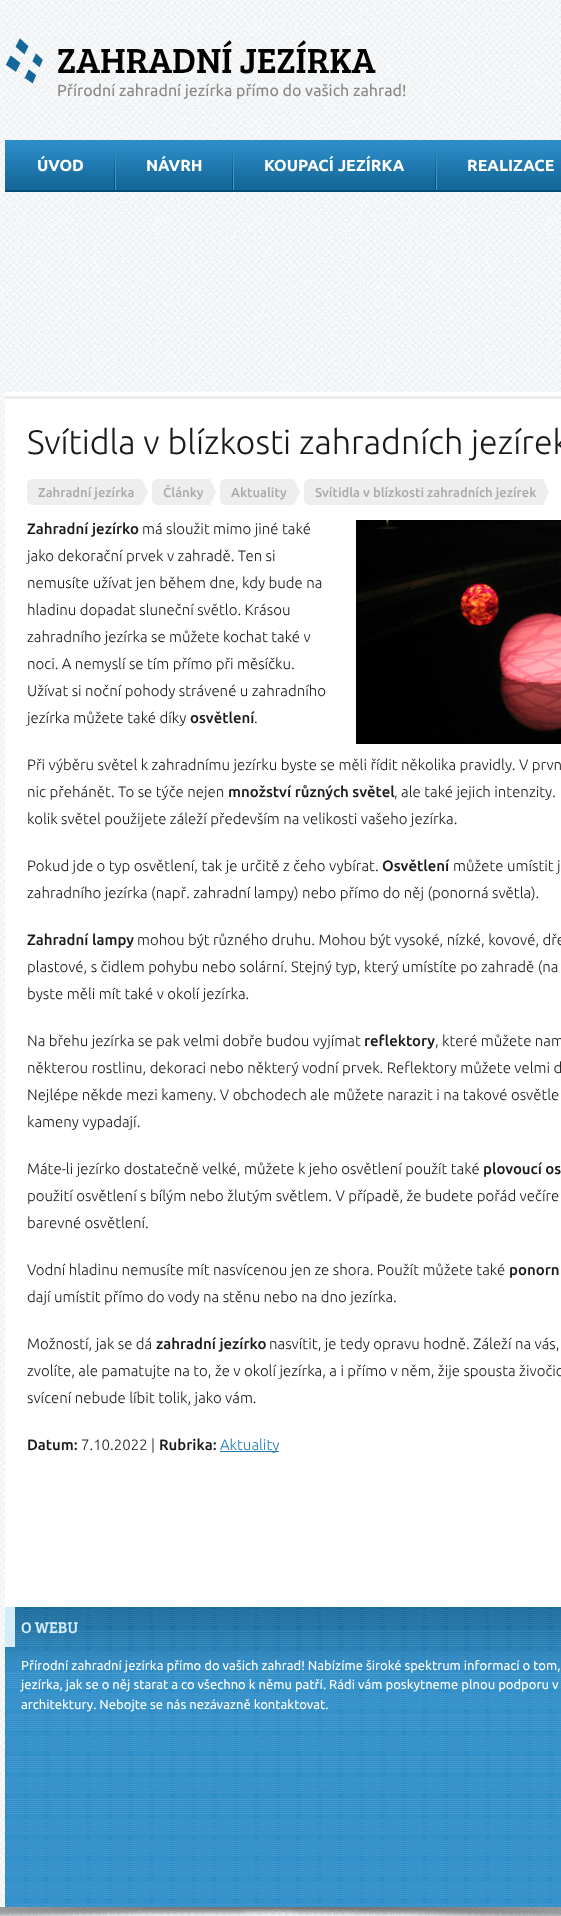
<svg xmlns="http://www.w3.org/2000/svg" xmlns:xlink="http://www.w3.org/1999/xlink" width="561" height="1916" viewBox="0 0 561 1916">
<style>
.cls-1{font:36px Bree Serif;fill:#000000}
.cls-2{font:16px Ubuntu;fill:#898989}
.cls-3{font:bold 16px Ubuntu;fill:#ffffff}
.cls-4{font:300 34px Ubuntu;fill:#1a1a1a}
.cls-5{font:500 13px Ubuntu;fill:#ababab}
.cls-6{font:500 15px Ubuntu;fill:#1a1a1a}
.cls-7{font:300 15px Ubuntu;fill:#1a1a1a}
.cls-8{font:300 15px Ubuntu;fill:#237eb6}
.cls-9{font:16px Bree Serif;fill:#d6edf9}
.cls-10{font:13px Ubuntu;fill:#ffffff}
</style>
<rect width="100%" height="100%" fill="#ffffff"/>
<image xlink:href="image0.png" x="0" y="0" width="561" height="1916"/>
<rect fill="#064d75" x="5" y="190" width="556" height="2"/>
<image xlink:href="image1.png" x="5" y="38" width="38" height="46"/>
<image xlink:href="image2.png" x="5" y="140" width="556" height="50"/>
<image xlink:href="image3.png" x="114" y="151" width="2" height="39"/>
<image xlink:href="image3.png" x="232" y="151" width="2" height="39"/>
<image xlink:href="image3.png" x="435" y="151" width="2" height="39"/>
<rect fill="#ffffff" x="5" y="392" width="556" height="1215"/>
<rect fill="#ededed" x="5" y="396" width="556" height="3"/>
<image xlink:href="image4.png" x="135" y="479" width="13" height="26"/>
<image xlink:href="image5.png" x="27" y="479" width="108" height="26"/>
<image xlink:href="image6.png" x="203" y="479" width="13" height="26"/>
<image xlink:href="image7.png" x="152" y="479" width="51" height="26"/>
<image xlink:href="image4.png" x="287" y="479" width="13" height="26"/>
<image xlink:href="image8.png" x="220" y="479" width="67" height="26"/>
<image xlink:href="image9.png" x="536" y="479" width="13" height="26"/>
<image xlink:href="image10.png" x="304" y="479" width="232" height="26"/>
<image xlink:href="image11.png" x="356" y="520" width="205" height="224"/>
<rect fill="#237eb6" x="220" y="1451" width="59" height="1"/>
<image xlink:href="image12.png" x="5" y="1607" width="556" height="300"/>
<rect fill="#d6edf9" x="5" y="1607" width="10" height="40"/>
<image xlink:href="image13.png" x="0" y="1907" width="561" height="9"/>
<text class="cls-1" x="57" y="73">ZAHRADNÍ JEZÍRKA</text>
<text class="cls-2" x="57" y="96">Přírodní zahradní jezírka přímo do vašich zahrad!</text>
<text class="cls-3" x="37" y="171">ÚVOD</text>
<text class="cls-3" x="146" y="171">NÁVRH</text>
<text class="cls-3" x="264" y="171">KOUPACÍ JEZÍRKA</text>
<text class="cls-3" x="467" y="171">REALIZACE</text>
<text class="cls-4" x="27" y="454">Svítidla v blízkosti zahradních jezírek</text>
<text class="cls-5" x="38" y="497">Zahradní jezírka</text>
<text class="cls-5" x="163" y="497">Články</text>
<text class="cls-5" x="231" y="497">Aktuality</text>
<text class="cls-5" x="315" y="497">Svítidla v blízkosti zahradních jezírek</text>
<text class="cls-6" x="27" y="534">Zahradní jezírko</text>
<text class="cls-7" x="142" y="534">má sloužit mimo jiné také</text>
<text class="cls-7"><tspan x="27" y="561">jako dekorační prvek v zahradě. Ten si</tspan><tspan x="27" y="588">nemusíte užívat jen během dne, kdy bude na</tspan><tspan x="27" y="615">hladinu dopadat sluneční světlo. Krásou</tspan><tspan x="27" y="642">zahradního jezírka se můžete kochat také v</tspan><tspan x="27" y="669">noci. A nemyslí se tím přímo při měsíčku.</tspan><tspan x="27" y="696">Užívat si noční pohody strávené u zahradního</tspan><tspan x="27" y="723">jezírka můžete také díky</tspan></text>
<text class="cls-6" x="190" y="723">osvětlení</text>
<text class="cls-7" x="254" y="723">.</text>
<text class="cls-7"><tspan x="27" y="770">Při výběru světel k zahradnímu jezírku byste se měli řídit několika pravidly. V prvn</tspan><tspan x="27" y="797">nic přehánět. To se týče nejen</tspan></text>
<text class="cls-6" x="228" y="797">množství různých světel</text>
<text class="cls-7" x="394" y="797">, ale také jejich intenzity.</text>
<text class="cls-7" x="27" y="824">kolik světel použijete záleží především na velikosti vašeho jezírka.</text>
<text class="cls-7" x="27" y="871">Pokud jde o typ osvětlení, tak je určitě z čeho vybírat.</text>
<text class="cls-6" x="382" y="871">Osvětlení</text>
<text class="cls-7" x="453" y="871">můžete umístit j</text>
<text class="cls-7" x="27" y="898">zahradního jezírka (např. zahradní lampy) nebo přímo do něj (ponorná světla).</text>
<text class="cls-6" x="27" y="945">Zahradní lampy</text>
<text class="cls-7" x="137" y="945">mohou být různého druhu. Mohou být vysoké, nízké, kovové, dře</text>
<text class="cls-7"><tspan x="27" y="972">plastové, s čidlem pohybu nebo solární. Stejný typ, který umístíte po zahradě (na</tspan><tspan x="27" y="999">byste měli mít také v okolí jezírka.</tspan></text>
<text class="cls-7" x="27" y="1046">Na břehu jezírka se pak velmi dobře budou vyjímat</text>
<text class="cls-6" x="364" y="1046">reflektory</text>
<text class="cls-7" x="435" y="1046">, které můžete nam</text>
<text class="cls-7"><tspan x="27" y="1073">některou rostlinu, dekoraci nebo některý vodní prvek. Reflektory můžete velmi d</tspan><tspan x="27" y="1100">Nejlépe někde mezi kameny. V obchodech ale můžete narazit i na takové osvětle</tspan><tspan x="27" y="1127">kameny vypadají.</tspan></text>
<text class="cls-7" x="27" y="1174">Máte-li jezírko dostatečně velké, můžete k jeho osvětlení použít také</text>
<text class="cls-6" x="483" y="1174">plovoucí os</text>
<text class="cls-7"><tspan x="27" y="1201">použití osvětlení s bílým nebo žlutým světlem. V případě, že budete pořád večíre</tspan><tspan x="27" y="1228">barevné osvětlení.</tspan></text>
<text class="cls-7" x="27" y="1275">Vodní hladinu nemusíte mít nasvícenou jen ze shora. Použít můžete také</text>
<text class="cls-6" x="509" y="1275">ponorn</text>
<text class="cls-7" x="27" y="1302">dají umístit přímo do vody na stěnu nebo na dno jezírka.</text>
<text class="cls-7" x="27" y="1349">Možností, jak se dá</text>
<text class="cls-6" x="156" y="1349">zahradní jezírko</text>
<text class="cls-7" x="269" y="1349">nasvítit, je tedy opravu hodně. Záleží na vás,</text>
<text class="cls-7"><tspan x="27" y="1376">zvolíte, ale pamatujte na to, že v okolí jezírka, a i přímo v něm, žije spousta živočic</tspan><tspan x="27" y="1403">svícení nebude líbit tolik, jako vám.</tspan></text>
<text class="cls-6" x="27" y="1450">Datum:</text>
<text class="cls-7" x="81" y="1450">7.10.2022 |</text>
<text class="cls-6" x="159" y="1450">Rubrika:</text>
<text class="cls-8" x="220" y="1450">Aktuality</text>
<text class="cls-9" x="21" y="1633">O WEBU</text>
<text class="cls-10"><tspan x="21" y="1670">Přírodní zahradní jezírka přímo do vašich zahrad! Nabízíme široké spektrum informací o tom,</tspan><tspan x="21" y="1689">jezírka, jak se o něj starat a co všechno k němu patří. Rádi vám poskytneme plnou podporu v</tspan><tspan x="21" y="1709">architektury. Nebojte se nás nezávazně kontaktovat.</tspan></text>
</svg>
